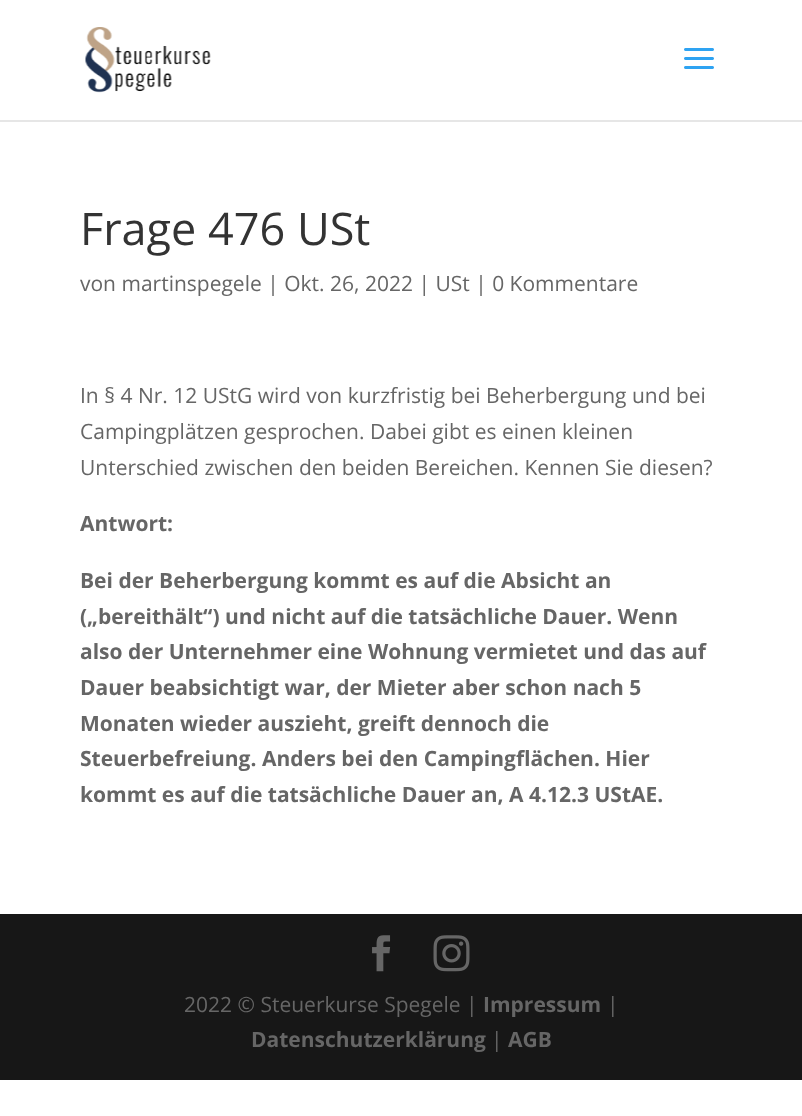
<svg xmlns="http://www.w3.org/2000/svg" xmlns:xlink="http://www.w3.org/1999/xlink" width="802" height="1116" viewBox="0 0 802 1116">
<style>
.cls-1{font:45px Open Sans;fill:#333333}
.cls-2{font:21px Open Sans;fill:#666666}
.cls-3{font:bold 21px Open Sans;fill:#666666}
</style>
<rect width="100%" height="100%" fill="#ffffff"/>
<path fill="#e6e6e6" d="M0 120V122H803V2H802V120Z"/>
<image xlink:href="image0.png" x="85" y="27" width="126" height="66"/>
<image xlink:href="image1.png" x="684" y="48" width="30" height="21"/>
<rect fill="#171717" x="0" y="914" width="802" height="166"/>
<image xlink:href="image2.png" x="372" y="935" width="19" height="37"/>
<image xlink:href="image3.png" x="433" y="935" width="37" height="37"/>
<text class="cls-1" x="80" y="245">Frage 476 USt</text>
<text class="cls-2" x="80" y="291">von martinspegele | Okt. 26, 2022 | USt | 0 Kommentare</text>
<text class="cls-2"><tspan x="80" y="403">In § 4 Nr. 12 UStG wird von kurzfristig bei Beherbergung und bei</tspan><tspan x="80" y="439">Campingplätzen gesprochen. Dabei gibt es einen kleinen</tspan><tspan x="80" y="475">Unterschied zwischen den beiden Bereichen. Kennen Sie diesen?</tspan></text>
<text class="cls-3" x="80" y="531">Antwort:</text>
<text class="cls-3"><tspan x="80" y="588">Bei der Beherbergung kommt es auf die Absicht an</tspan><tspan x="80" y="624">(„bereithält“) und nicht auf die tatsächliche Dauer. Wenn</tspan><tspan x="80" y="659">also der Unternehmer eine Wohnung vermietet und das auf</tspan><tspan x="80" y="695">Dauer beabsichtigt war, der Mieter aber schon nach 5</tspan><tspan x="80" y="731">Monaten wieder auszieht, greift dennoch die</tspan><tspan x="80" y="766">Steuerbefreiung. Anders bei den Campingflächen. Hier</tspan><tspan x="80" y="802">kommt es auf die tatsächliche Dauer an, A 4.12.3 UStAE.</tspan></text>
<text class="cls-2" x="184" y="1012">2022 © Steuerkurse Spegele |</text>
<text class="cls-3" x="483" y="1012">Impressum</text>
<text class="cls-2" x="607" y="1012">|</text>
<text class="cls-3" x="251" y="1047">Datenschutzerklärung</text>
<text class="cls-2" x="491" y="1047">|</text>
<text class="cls-3" x="508" y="1047">AGB</text>
</svg>
